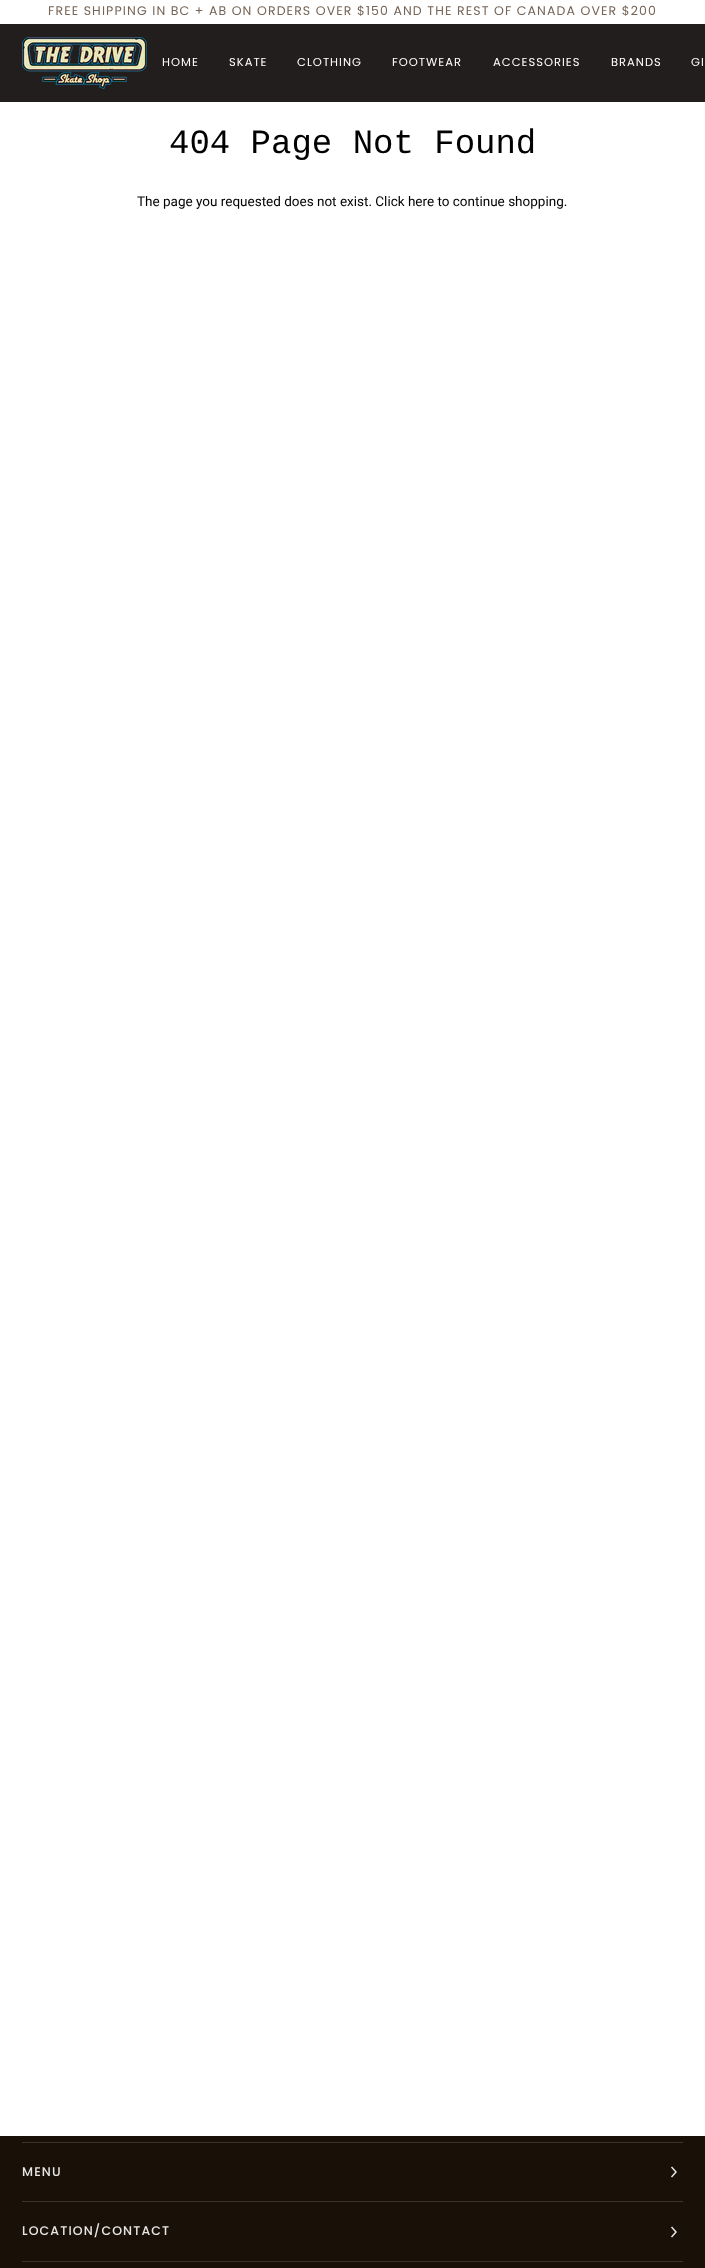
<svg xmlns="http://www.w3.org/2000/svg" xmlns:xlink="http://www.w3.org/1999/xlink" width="705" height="2268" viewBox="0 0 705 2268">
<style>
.cls-1{font:12.5px Poppins;letter-spacing:1.12px;fill:#766456}
.cls-2{font:11.5px Poppins;letter-spacing:1px;fill:#ffffff}
.cls-3{font:34px Liberation Mono;fill:#020100}
.cls-4{font:13.5px Roboto;fill:#020100}
.cls-5{font:500 12.5px Poppins;letter-spacing:1.12px;fill:#e8e7e6}
</style>
<rect width="100%" height="100%" fill="#ffffff"/>
<rect fill="#231e1e" x="0" y="24" width="705" height="78"/>
<image xlink:href="image0.png" x="22" y="37" width="125" height="52"/>
<rect fill="#191008" x="0" y="2136" width="705" height="132"/>
<rect fill="#3c342d" x="22" y="2142" width="661" height="1"/>
<rect fill="#3c342d" x="22" y="2201" width="661" height="1"/>
<path fill="none" stroke="#e8e7e6" stroke-width="1.5" stroke-linecap="square" d="M672 2176.5L676 2172L672 2167.5"/>
<rect fill="#3c342d" x="22" y="2261" width="661" height="1"/>
<path fill="none" stroke="#e8e7e6" stroke-width="1.5" stroke-linecap="square" d="M672 2236.5L676 2232L672 2227.5"/>
<text class="cls-1" x="48" y="15">FREE SHIPPING IN BC + AB ON ORDERS OVER $150 AND THE REST OF CANADA OVER $200</text>
<text class="cls-2" x="162" y="66">HOME</text>
<text class="cls-2" x="229" y="66">SKATE</text>
<text class="cls-2" x="297" y="66">CLOTHING</text>
<text class="cls-2" x="392" y="66">FOOTWEAR</text>
<text class="cls-2" x="493" y="66">ACCESSORIES</text>
<text class="cls-2" x="611" y="66">BRANDS</text>
<text class="cls-2" x="691" y="66">GI</text>
<text class="cls-3" x="169" y="153">404 Page Not Found</text>
<text class="cls-4" x="137" y="206">The page you requested does not exist. Click here to continue shopping.</text>
<text class="cls-5" x="22" y="2176">MENU</text>
<text class="cls-5" x="22" y="2235">LOCATION/CONTACT</text>
</svg>
